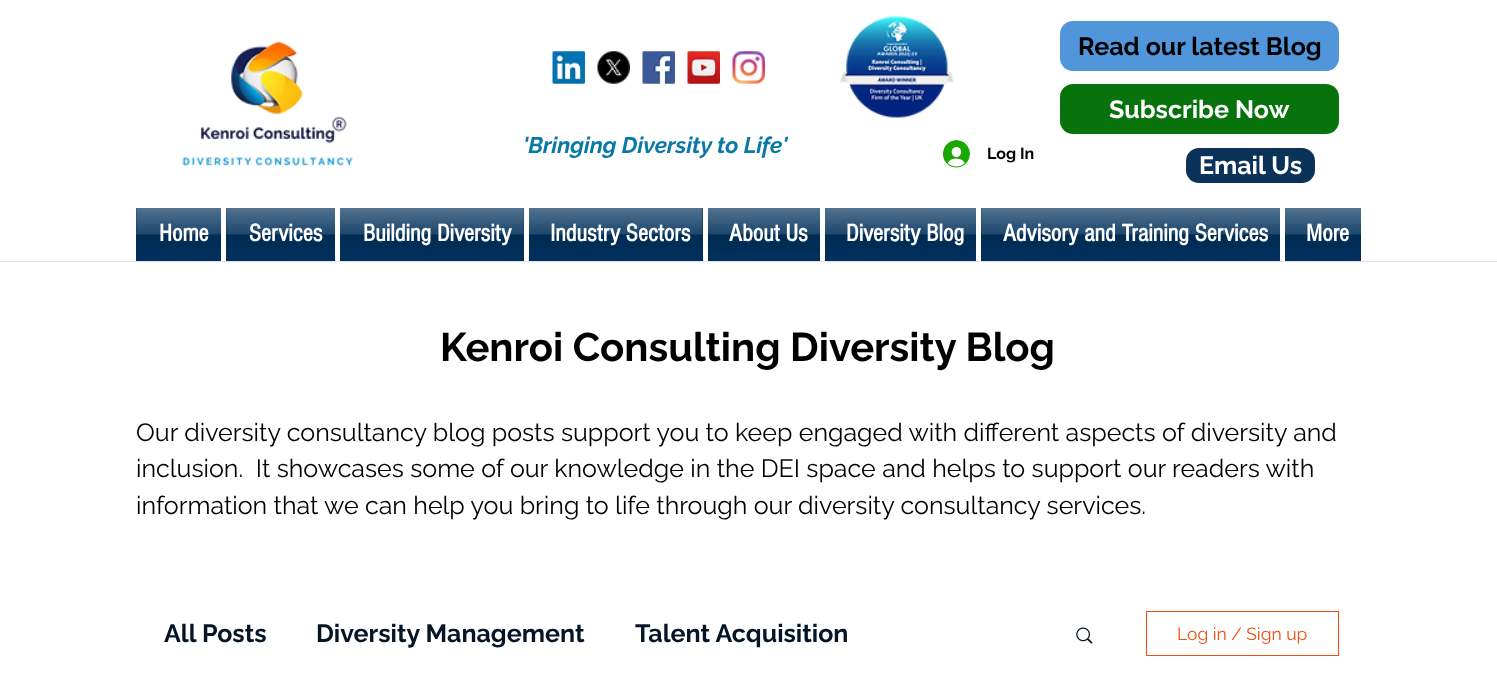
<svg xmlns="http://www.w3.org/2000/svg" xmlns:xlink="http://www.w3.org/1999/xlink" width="1497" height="681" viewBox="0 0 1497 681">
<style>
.cls-1{font:bold 25px Raleway;fill:#000000}
.cls-2{font:bold 25px Raleway;fill:#ffffff}
.cls-3{font:italic bold 22.5px Raleway;fill:#0879a6}
.cls-4{font:bold 16px Raleway;fill:#000000}
.cls-5{font:bold 25px 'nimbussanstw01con';fill:#ffffff}
.cls-6{font:bold 40px Raleway;fill:#000000}
.cls-7{font:25px Raleway;fill:#000000}
.cls-8{font:bold 25px Raleway;fill:#031526}
.cls-9{font:17.5px Raleway;fill:#ed4f0c}
</style>
<rect width="100%" height="100%" fill="#ffffff"/>
<image xlink:href="image0.png" x="182" y="41" width="171" height="125"/>
<image xlink:href="image1.png" x="552" y="51" width="33" height="33"/>
<image xlink:href="image2.png" x="597" y="51" width="33" height="33"/>
<image xlink:href="image3.png" x="642" y="51" width="33" height="33"/>
<image xlink:href="image4.png" x="687" y="51" width="33" height="33"/>
<image xlink:href="image5.png" x="732" y="51" width="33" height="33"/>
<image xlink:href="image6.png" x="840" y="16" width="114" height="102"/>
<rect fill="#5195db" x="1060" y="21" width="279" height="50" rx="13"/>
<rect fill="#08730c" x="1060" y="84" width="279" height="50" rx="13"/>
<image xlink:href="image7.png" x="943" y="140" width="27" height="28"/>
<rect fill="#0b3259" x="1186" y="148" width="129" height="35" rx="13"/>
<rect fill="#00305b" x="136" y="208" width="85" height="53"/>
<image xlink:href="image8.png" x="136" y="208" width="85" height="41"/>
<rect fill="#00305b" x="226" y="208" width="109" height="53"/>
<image xlink:href="image9.png" x="226" y="208" width="109" height="41"/>
<rect fill="#00305b" x="340" y="208" width="184" height="53"/>
<image xlink:href="image10.png" x="340" y="208" width="184" height="41"/>
<rect fill="#00305b" x="529" y="208" width="174" height="53"/>
<image xlink:href="image11.png" x="529" y="208" width="174" height="41"/>
<rect fill="#00305b" x="708" y="208" width="112" height="53"/>
<image xlink:href="image12.png" x="707" y="208" width="113" height="45"/>
<rect fill="#00305b" x="825" y="208" width="151" height="53"/>
<image xlink:href="image13.png" x="825" y="208" width="151" height="41"/>
<rect fill="#00305b" x="981" y="208" width="299" height="53"/>
<image xlink:href="image14.png" x="981" y="208" width="299" height="41"/>
<rect fill="#00305b" x="1285" y="208" width="76" height="53"/>
<image xlink:href="image15.png" x="1285" y="208" width="76" height="41"/>
<rect fill="#dae0e6" x="0" y="261" width="1497" height="1"/>
<image xlink:href="image16.png" x="1076" y="627" width="17" height="17"/>
<rect fill="none" stroke="#ed4f0c" x="1146.5" y="611.5" width="192" height="44"/>
<text class="cls-1" x="1078" y="55">Read our latest Blog</text>
<text class="cls-2" x="1109" y="118">Subscribe Now</text>
<text class="cls-3" x="523" y="153">'Bringing Diversity to Life'</text>
<text class="cls-4" x="987" y="159">Log In</text>
<text class="cls-2" x="1199" y="174">Email Us</text>
<text class="cls-5" x="159" y="241">Home</text>
<text class="cls-5" x="249" y="241">Services</text>
<text class="cls-5" x="363" y="241">Building Diversity</text>
<text class="cls-5" x="550" y="241">Industry Sectors</text>
<text class="cls-5" x="729" y="241">About Us</text>
<text class="cls-5" x="846" y="241">Diversity Blog</text>
<text class="cls-5" x="1003" y="241">Advisory and Training Services</text>
<text class="cls-5" x="1306" y="241">More</text>
<text class="cls-6" x="440" y="361">Kenroi Consulting Diversity Blog</text>
<text class="cls-7" xml:space="preserve"><tspan x="136" y="441">Our diversity consultancy blog posts support you to keep engaged with different aspects of diversity and</tspan><tspan x="136" y="477">inclusion.  It showcases some of our knowledge in the DEI space and helps to support our readers with</tspan><tspan x="136" y="514">information that we can help you bring to life through our diversity consultancy services.</tspan></text>
<text class="cls-8" x="164" y="642">All Posts</text>
<text class="cls-8" x="316" y="642">Diversity Management</text>
<text class="cls-8" x="635" y="642">Talent Acquisition</text>
<text class="cls-9" x="1177" y="640">Log in / Sign up</text>
</svg>
